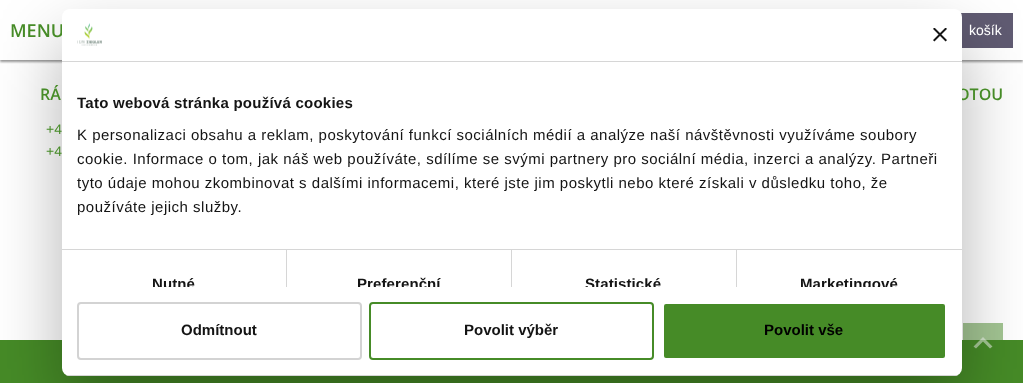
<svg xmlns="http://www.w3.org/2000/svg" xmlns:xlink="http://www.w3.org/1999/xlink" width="1023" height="383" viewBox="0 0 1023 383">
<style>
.cls-1{font:600 18px Open Sans;fill:#468b27}
.cls-2{font:14px Liberation Sans;fill:#ffffff}
.cls-3{font:600 16px Open Sans;fill:#468b27}
.cls-4{font:14px Liberation Sans;fill:#468b27}
.cls-5{font:bold 15px Liberation Sans;letter-spacing:0.25px;fill:#141414}
.cls-6{font:15px Liberation Sans;letter-spacing:0.5px;fill:#141414}
.cls-7{font:bold 15px Liberation Sans;letter-spacing:0.1px;fill:#141414}
.cls-8{font:bold 15px Liberation Sans;fill:#141414}
.cls-9{font:bold 15px Liberation Sans;fill:#000000}
</style>
<defs>
<clipPath id="clip1"><rect x="62" y="62" width="900" height="225"/></clipPath>
<clipPath id="clip2"><rect x="62" y="9" width="900" height="367" rx="8"/></clipPath>
</defs>
<rect width="100%" height="100%" fill="#ffffff"/>
<rect fill="#a3c593" x="963" y="323" width="40" height="17"/>
<rect fill="#000000" fill-opacity="0.4" filter="blur(1px)" x="0" y="2" width="1023" height="60"/>
<rect fill="#ffffff" x="0" y="0" width="1023" height="60"/>
<rect fill="#605b72" x="960" y="13" width="53" height="35"/>
<rect fill="#468b27" x="0" y="340" width="1023" height="43"/>
<path fill="#ffffff" fill-opacity="0.5" d="M973.5 346.5L976 348.5L983 341.5L990 348.5L992.5 346.5L983 337Z"/>
<rect fill="#000000" fill-opacity="0.3" filter="blur(34px)" x="62" y="41" width="900" height="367" rx="8"/>
<text class="cls-1" x="10" y="37">MENU</text>
<text class="cls-2" x="969" y="35">košík</text>
<text class="cls-3" x="40" y="100">RÁ</text>
<text class="cls-4"><tspan x="46" y="134">+4</tspan><tspan x="46" y="156">+4</tspan></text>
<text class="cls-3" x="957" y="100">OTOU</text>
<rect fill="#ffffff" x="62" y="9" width="900" height="367" rx="8"/>
<rect fill="#d6d6d6" x="62" y="61" width="900" height="1"/>
<image xlink:href="image0.png" x="77" y="23" width="25" height="23"/>
<image xlink:href="image1.png" x="933" y="28" width="14" height="14"/>
<rect fill="#d6d6d6" x="62" y="249" width="900" height="1"/>
<text class="cls-5" x="77" y="108">Tato webová stránka používá cookies</text>
<text class="cls-6"><tspan x="77" y="140">K personalizaci obsahu a reklam, poskytování funkcí sociálních médií a analýze naší návštěvnosti využíváme soubory</tspan><tspan x="77" y="164">cookie. Informace o tom, jak náš web používáte, sdílíme se svými partnery pro sociální média, inzerci a analýzy. Partneři</tspan><tspan x="77" y="188">tyto údaje mohou zkombinovat s dalšími informacemi, které jste jim poskytli nebo které získali v důsledku toho, že</tspan><tspan x="77" y="212">používáte jejich služby.</tspan></text>
<rect fill="#d6d6d6" x="286" y="250" width="1" height="37"/>
<g clip-path="url(#clip1)">
<text class="cls-7" x="152" y="289">Nutné</text>
</g>
<rect fill="#d6d6d6" x="511" y="250" width="1" height="37"/>
<g clip-path="url(#clip1)">
<text class="cls-7" x="357" y="289">Preferenční</text>
</g>
<rect fill="#d6d6d6" x="736" y="250" width="1" height="37"/>
<g clip-path="url(#clip1)">
<text class="cls-7" x="585" y="289">Statistické</text>
<text class="cls-7" x="800" y="289">Marketingové</text>
</g>
<g clip-path="url(#clip2)">
<rect fill="#d6d6d6" x="62" y="375" width="900" height="1"/>
</g>
<rect fill="none" stroke="#d3d3d3" stroke-width="2" x="78" y="303" width="283" height="56" rx="3"/>
<text class="cls-8" x="181" y="335">Odmítnout</text>
<rect fill="none" stroke="#468b27" stroke-width="2" x="370" y="303" width="283" height="56" rx="3"/>
<text class="cls-8" x="464" y="335">Povolit výběr</text>
<rect fill="#468b27" stroke="#ffffff" stroke-width="2" x="663" y="303" width="283" height="56" rx="3"/>
<text class="cls-9" x="764" y="335">Povolit vše</text>
</svg>
